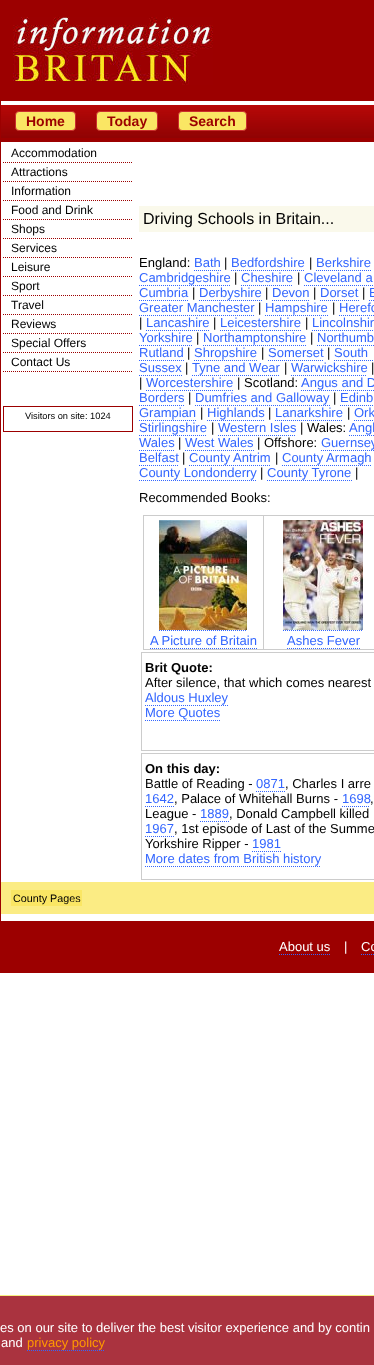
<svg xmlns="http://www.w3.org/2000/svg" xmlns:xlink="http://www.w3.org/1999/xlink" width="374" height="1365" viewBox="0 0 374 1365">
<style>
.cls-1{font:bold 14px Liberation Sans;fill:#9c0000}
.cls-2{font:12px Liberation Sans;fill:#000000}
.cls-3{font:9.25px Liberation Sans;fill:#000000}
.cls-4{font:16px Liberation Sans;fill:#000000}
.cls-5{font:13px Liberation Sans;fill:#000000}
.cls-6{font:13px Liberation Sans;fill:#3366ff}
.cls-7{font:bold 13px Liberation Sans;fill:#000000}
.cls-8{font:10.75px Liberation Sans;fill:#000000}
.cls-9{font:13px Liberation Sans;fill:#ffffff}
.cls-10{font:13px Liberation Sans;fill:#ff9900}
</style>
<rect width="100%" height="100%" fill="#ffffff"/>
<rect fill="none" stroke="#9c0000" x="0.5" y="0.5" width="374" height="972"/>
<rect fill="#9c0000" x="1" y="1" width="373" height="100"/>
<image xlink:href="image0.png" x="13" y="17" width="200" height="68"/>
<rect fill="#9c0000" x="1" y="138" width="373" height="4"/>
<image xlink:href="image1.png" x="1" y="105" width="373" height="33"/>
<rect fill="#fae664" stroke="#c92d2d" x="15.5" y="111.5" width="60" height="19" rx="3.5"/>
<rect fill="#fae664" stroke="#c92d2d" x="96.5" y="111.5" width="61" height="19" rx="3.5"/>
<rect fill="#fae664" stroke="#c92d2d" x="178.5" y="111.5" width="68" height="19" rx="3.5"/>
<path fill="none" stroke="#9c0000" stroke-dasharray="1 1" d="M3 162.5H133"/>
<path fill="none" stroke="#9c0000" stroke-dasharray="1 1" d="M3 181.5H133"/>
<path fill="none" stroke="#9c0000" stroke-dasharray="1 1" d="M3 200.5H133"/>
<path fill="none" stroke="#9c0000" stroke-dasharray="1 1" d="M3 219.5H133"/>
<path fill="none" stroke="#9c0000" stroke-dasharray="1 1" d="M3 238.5H133"/>
<path fill="none" stroke="#9c0000" stroke-dasharray="1 1" d="M3 257.5H133"/>
<path fill="none" stroke="#9c0000" stroke-dasharray="1 1" d="M3 276.5H133"/>
<path fill="none" stroke="#9c0000" stroke-dasharray="1 1" d="M3 295.5H133"/>
<path fill="none" stroke="#9c0000" stroke-dasharray="1 1" d="M3 314.5H133"/>
<path fill="none" stroke="#9c0000" stroke-dasharray="1 1" d="M3 333.5H133"/>
<path fill="none" stroke="#9c0000" stroke-dasharray="1 1" d="M3 352.5H133"/>
<path fill="none" stroke="#9c0000" stroke-dasharray="1 1" d="M3 371.5H133"/>
<rect fill="none" stroke="#9c0000" x="3.5" y="406.5" width="129" height="25"/>
<rect fill="#faf9eb" x="139" y="206" width="235" height="26"/>
<path fill="none" stroke="#3366ff" stroke-dasharray="1 1" d="M194 270.5H221"/>
<path fill="none" stroke="#3366ff" stroke-dasharray="1 1" d="M231 270.5H305"/>
<path fill="none" stroke="#3366ff" stroke-dasharray="1 1" d="M316 270.5H371"/>
<path fill="none" stroke="#3366ff" stroke-dasharray="1 1" d="M139 285.5H231"/>
<path fill="none" stroke="#3366ff" stroke-dasharray="1 1" d="M241 285.5H293"/>
<path fill="none" stroke="#3366ff" stroke-dasharray="1 1" d="M304 285.5H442"/>
<path fill="none" stroke="#3366ff" stroke-dasharray="1 1" d="M139 300.5H188"/>
<path fill="none" stroke="#3366ff" stroke-dasharray="1 1" d="M199 300.5H262"/>
<path fill="none" stroke="#3366ff" stroke-dasharray="1 1" d="M272 300.5H310"/>
<path fill="none" stroke="#3366ff" stroke-dasharray="1 1" d="M320 300.5H359"/>
<path fill="none" stroke="#3366ff" stroke-dasharray="1 1" d="M369 300.5H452"/>
<path fill="none" stroke="#3366ff" stroke-dasharray="1 1" d="M139 315.5H255"/>
<path fill="none" stroke="#3366ff" stroke-dasharray="1 1" d="M265 315.5H328"/>
<path fill="none" stroke="#3366ff" stroke-dasharray="1 1" d="M339 315.5H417"/>
<path fill="none" stroke="#3366ff" stroke-dasharray="1 1" d="M146 330.5H210"/>
<path fill="none" stroke="#3366ff" stroke-dasharray="1 1" d="M220 330.5H301"/>
<path fill="none" stroke="#3366ff" stroke-dasharray="1 1" d="M312 330.5H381"/>
<path fill="none" stroke="#3366ff" stroke-dasharray="1 1" d="M139 345.5H193"/>
<path fill="none" stroke="#3366ff" stroke-dasharray="1 1" d="M203 345.5H307"/>
<path fill="none" stroke="#3366ff" stroke-dasharray="1 1" d="M317 345.5H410"/>
<path fill="none" stroke="#3366ff" stroke-dasharray="1 1" d="M139 360.5H184"/>
<path fill="none" stroke="#3366ff" stroke-dasharray="1 1" d="M194 360.5H257"/>
<path fill="none" stroke="#3366ff" stroke-dasharray="1 1" d="M268 360.5H324"/>
<path fill="none" stroke="#3366ff" stroke-dasharray="1 1" d="M334 360.5H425"/>
<path fill="none" stroke="#3366ff" stroke-dasharray="1 1" d="M139 375.5H182"/>
<path fill="none" stroke="#3366ff" stroke-dasharray="1 1" d="M192 375.5H280"/>
<path fill="none" stroke="#3366ff" stroke-dasharray="1 1" d="M291 375.5H367"/>
<path fill="none" stroke="#3366ff" stroke-dasharray="1 1" d="M146 390.5H233"/>
<path fill="none" stroke="#3366ff" stroke-dasharray="1 1" d="M301 390.5H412"/>
<path fill="none" stroke="#3366ff" stroke-dasharray="1 1" d="M139 405.5H185"/>
<path fill="none" stroke="#3366ff" stroke-dasharray="1 1" d="M195 405.5H330"/>
<path fill="none" stroke="#3366ff" stroke-dasharray="1 1" d="M340 405.5H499"/>
<path fill="none" stroke="#3366ff" stroke-dasharray="1 1" d="M139 420.5H196"/>
<path fill="none" stroke="#3366ff" stroke-dasharray="1 1" d="M207 420.5H265"/>
<path fill="none" stroke="#3366ff" stroke-dasharray="1 1" d="M275 420.5H343"/>
<path fill="none" stroke="#3366ff" stroke-dasharray="1 1" d="M354 420.5H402"/>
<path fill="none" stroke="#3366ff" stroke-dasharray="1 1" d="M139 435.5H207"/>
<path fill="none" stroke="#3366ff" stroke-dasharray="1 1" d="M218 435.5H296"/>
<path fill="none" stroke="#3366ff" stroke-dasharray="1 1" d="M349 435.5H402"/>
<path fill="none" stroke="#3366ff" stroke-dasharray="1 1" d="M139 450.5H175"/>
<path fill="none" stroke="#3366ff" stroke-dasharray="1 1" d="M185 450.5H254"/>
<path fill="none" stroke="#3366ff" stroke-dasharray="1 1" d="M321 450.5H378"/>
<path fill="none" stroke="#3366ff" stroke-dasharray="1 1" d="M139 465.5H179"/>
<path fill="none" stroke="#3366ff" stroke-dasharray="1 1" d="M189 465.5H271"/>
<path fill="none" stroke="#3366ff" stroke-dasharray="1 1" d="M282 465.5H371"/>
<path fill="none" stroke="#3366ff" stroke-dasharray="1 1" d="M139 480.5H257"/>
<path fill="none" stroke="#3366ff" stroke-dasharray="1 1" d="M267 480.5H352"/>
<rect fill="#cccccc" x="143" y="515" width="231" height="135"/>
<rect fill="#ffffff" x="144" y="516" width="119" height="133"/>
<image xlink:href="image2.png" x="159" y="520" width="88" height="110"/>
<path fill="none" stroke="#3366ff" stroke-dasharray="1 1" d="M159 630.5H247"/>
<path fill="none" stroke="#3366ff" stroke-dasharray="1 1" d="M150 648.5H257"/>
<rect fill="#ffffff" x="264" y="516" width="110" height="133"/>
<image xlink:href="image3.png" x="283" y="520" width="80" height="110"/>
<path fill="none" stroke="#3366ff" stroke-dasharray="1 1" d="M283 630.5H363"/>
<path fill="none" stroke="#3366ff" stroke-dasharray="1 1" d="M287 648.5H360"/>
<rect fill="none" stroke="#cccccc" x="141.5" y="652.5" width="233" height="98"/>
<path fill="none" stroke="#3366ff" stroke-dasharray="1 1" d="M145 705.5H228"/>
<path fill="none" stroke="#3366ff" stroke-dasharray="1 1" d="M145 720.5H220"/>
<rect fill="none" stroke="#cccccc" x="141.5" y="753.5" width="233" height="126"/>
<path fill="none" stroke="#3366ff" stroke-dasharray="1 1" d="M256 791.5H285"/>
<path fill="none" stroke="#3366ff" stroke-dasharray="1 1" d="M145 806.5H174"/>
<path fill="none" stroke="#3366ff" stroke-dasharray="1 1" d="M342 806.5H370"/>
<path fill="none" stroke="#3366ff" stroke-dasharray="1 1" d="M200 821.5H229"/>
<path fill="none" stroke="#3366ff" stroke-dasharray="1 1" d="M145 836.5H174"/>
<path fill="none" stroke="#3366ff" stroke-dasharray="1 1" d="M252 851.5H281"/>
<path fill="none" stroke="#3366ff" stroke-dasharray="1 1" d="M145 866.5H321"/>
<rect fill="#fbec84" x="1" y="882" width="373" height="32"/>
<rect fill="#fae664" x="11" y="890" width="71" height="16"/>
<rect fill="#9c0000" x="1" y="921" width="373" height="51"/>
<path fill="none" stroke="#3366ff" stroke-dasharray="1 1" d="M279 954.5H330"/>
<path fill="none" stroke="#3366ff" stroke-dasharray="1 1" d="M361 954.5H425"/>
<rect fill="#aa333f" x="0" y="1296" width="374" height="69"/>
<path fill="#f6ef81" fill-rule="evenodd" d="M-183 1295H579C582 1295 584 1297 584 1300V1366H-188V1300C-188 1297-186 1295-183 1295ZM-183 1296H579C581 1296 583 1298 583 1300V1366H-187V1300C-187 1298-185 1296-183 1296Z"/>
<path fill="none" stroke="#3366ff" stroke-dasharray="1 1" d="M27 1350.5H105"/>
<text class="cls-1" x="26" y="126">Home</text>
<text class="cls-1" x="107" y="126">Today</text>
<text class="cls-1" x="189" y="126">Search</text>
<text class="cls-2"><tspan x="11" y="157">Accommodation</tspan><tspan x="11" y="176">Attractions</tspan><tspan x="11" y="195">Information</tspan><tspan x="11" y="214">Food and Drink</tspan><tspan x="11" y="233">Shops</tspan><tspan x="11" y="252">Services</tspan><tspan x="11" y="271">Leisure</tspan><tspan x="11" y="290">Sport</tspan><tspan x="11" y="309">Travel</tspan><tspan x="11" y="328">Reviews</tspan><tspan x="11" y="347">Special Offers</tspan><tspan x="11" y="366">Contact Us</tspan></text>
<text class="cls-3" x="25" y="419">Visitors on site: 1024</text>
<text class="cls-4" x="143" y="224">Driving Schools in Britain...</text>
<text class="cls-5" x="139" y="267">England:</text>
<text class="cls-6" x="194" y="267">Bath</text>
<text class="cls-5" x="224" y="267">|</text>
<text class="cls-6" x="231" y="267">Bedfordshire</text>
<text class="cls-5" x="309" y="267">|</text>
<text class="cls-6" x="316" y="267">Berkshire</text>
<text class="cls-6" x="139" y="282">Cambridgeshire</text>
<text class="cls-5" x="234" y="282">|</text>
<text class="cls-6" x="241" y="282">Cheshire</text>
<text class="cls-5" x="297" y="282">|</text>
<text class="cls-6" x="304" y="282">Cleveland a</text>
<text class="cls-6" x="139" y="297">Cumbria</text>
<text class="cls-5" x="192" y="297">|</text>
<text class="cls-6" x="199" y="297">Derbyshire</text>
<text class="cls-5" x="265" y="297">|</text>
<text class="cls-6" x="272" y="297">Devon</text>
<text class="cls-5" x="313" y="297">|</text>
<text class="cls-6" x="320" y="297">Dorset</text>
<text class="cls-5" x="362" y="297">|</text>
<text class="cls-6" x="369" y="297">E</text>
<text class="cls-6" x="139" y="312">Greater Manchester</text>
<text class="cls-5" x="258" y="312">|</text>
<text class="cls-6" x="265" y="312">Hampshire</text>
<text class="cls-5" x="332" y="312">|</text>
<text class="cls-6" x="339" y="312">Herefo</text>
<text class="cls-5" x="139" y="327">|</text>
<text class="cls-6" x="146" y="327">Lancashire</text>
<text class="cls-5" x="213" y="327">|</text>
<text class="cls-6" x="220" y="327">Leicestershire</text>
<text class="cls-5" x="305" y="327">|</text>
<text class="cls-6" x="312" y="327">Lincolnshir</text>
<text class="cls-6" x="139" y="342">Yorkshire</text>
<text class="cls-5" x="196" y="342">|</text>
<text class="cls-6" x="203" y="342">Northamptonshire</text>
<text class="cls-5" x="310" y="342">|</text>
<text class="cls-6" x="317" y="342">Northumb</text>
<text class="cls-6" x="139" y="357">Rutland</text>
<text class="cls-5" x="187" y="357">|</text>
<text class="cls-6" x="194" y="357">Shropshire</text>
<text class="cls-5" x="261" y="357">|</text>
<text class="cls-6" x="268" y="357">Somerset</text>
<text class="cls-5" x="327" y="357">|</text>
<text class="cls-6" x="334" y="357">South</text>
<text class="cls-6" x="139" y="372">Sussex</text>
<text class="cls-5" x="185" y="372">|</text>
<text class="cls-6" x="192" y="372">Tyne and Wear</text>
<text class="cls-5" x="284" y="372">|</text>
<text class="cls-6" x="291" y="372">Warwickshire</text>
<text class="cls-5" x="371" y="372">|</text>
<text class="cls-5" x="139" y="387">|</text>
<text class="cls-6" x="146" y="387">Worcestershire</text>
<text class="cls-5" x="237" y="387">| Scotland:</text>
<text class="cls-6" x="301" y="387">Angus and D</text>
<text class="cls-6" x="139" y="402">Borders</text>
<text class="cls-5" x="188" y="402">|</text>
<text class="cls-6" x="195" y="402">Dumfries and Galloway</text>
<text class="cls-5" x="333" y="402">|</text>
<text class="cls-6" x="340" y="402">Edinb</text>
<text class="cls-6" x="139" y="417">Grampian</text>
<text class="cls-5" x="200" y="417">|</text>
<text class="cls-6" x="207" y="417">Highlands</text>
<text class="cls-5" x="268" y="417">|</text>
<text class="cls-6" x="275" y="417">Lanarkshire</text>
<text class="cls-5" x="347" y="417">|</text>
<text class="cls-6" x="354" y="417">Ork</text>
<text class="cls-6" x="139" y="432">Stirlingshire</text>
<text class="cls-5" x="211" y="432">|</text>
<text class="cls-6" x="218" y="432">Western Isles</text>
<text class="cls-5" x="300" y="432">| Wales:</text>
<text class="cls-6" x="349" y="432">Angl</text>
<text class="cls-6" x="139" y="447">Wales</text>
<text class="cls-5" x="178" y="447">|</text>
<text class="cls-6" x="185" y="447">West Wales</text>
<text class="cls-5" x="257" y="447">| Offshore:</text>
<text class="cls-6" x="321" y="447">Guernsey</text>
<text class="cls-6" x="139" y="462">Belfast</text>
<text class="cls-5" x="182" y="462">|</text>
<text class="cls-6" x="189" y="462">County Antrim</text>
<text class="cls-5" x="275" y="462">|</text>
<text class="cls-6" x="282" y="462">County Armagh</text>
<text class="cls-6" x="139" y="477">County Londonderry</text>
<text class="cls-5" x="260" y="477">|</text>
<text class="cls-6" x="267" y="477">County Tyrone</text>
<text class="cls-5" x="355" y="477">|</text>
<text class="cls-5" x="139" y="502">Recommended Books:</text>
<text class="cls-6" x="150" y="645">A Picture of Britain</text>
<text class="cls-6" x="287" y="645">Ashes Fever</text>
<text class="cls-7" x="145" y="672">Brit Quote:</text>
<text class="cls-5" x="145" y="687">After silence, that which comes nearest</text>
<text class="cls-6"><tspan x="145" y="702">Aldous Huxley</tspan><tspan x="145" y="717">More Quotes</tspan></text>
<text class="cls-7" x="145" y="773">On this day:</text>
<text class="cls-5" x="145" y="788">Battle of Reading -</text>
<text class="cls-6" x="256" y="788">0871</text>
<text class="cls-5" x="285" y="788">, Charles I arre</text>
<text class="cls-6" x="145" y="803">1642</text>
<text class="cls-5" x="174" y="803">, Palace of Whitehall Burns -</text>
<text class="cls-6" x="342" y="803">1698</text>
<text class="cls-5" x="370" y="803">,</text>
<text class="cls-5" x="145" y="818">League -</text>
<text class="cls-6" x="200" y="818">1889</text>
<text class="cls-5" x="229" y="818">, Donald Campbell killed</text>
<text class="cls-6" x="145" y="833">1967</text>
<text class="cls-5" x="174" y="833">, 1st episode of Last of the Summe</text>
<text class="cls-5" x="145" y="848">Yorkshire Ripper -</text>
<text class="cls-6" x="252" y="848">1981</text>
<text class="cls-6" x="145" y="863">More dates from British history</text>
<text class="cls-8" x="13" y="902">County Pages</text>
<text class="cls-9" x="279" y="951">About us</text>
<text class="cls-9" x="344" y="951">|</text>
<text class="cls-9" x="361" y="951">Co</text>
<text class="cls-9" x="0" y="1332">es on our site to deliver the best visitor experience and by contin</text>
<text class="cls-9" x="1" y="1347">and</text>
<text class="cls-10" x="27" y="1347">privacy policy</text>
</svg>
